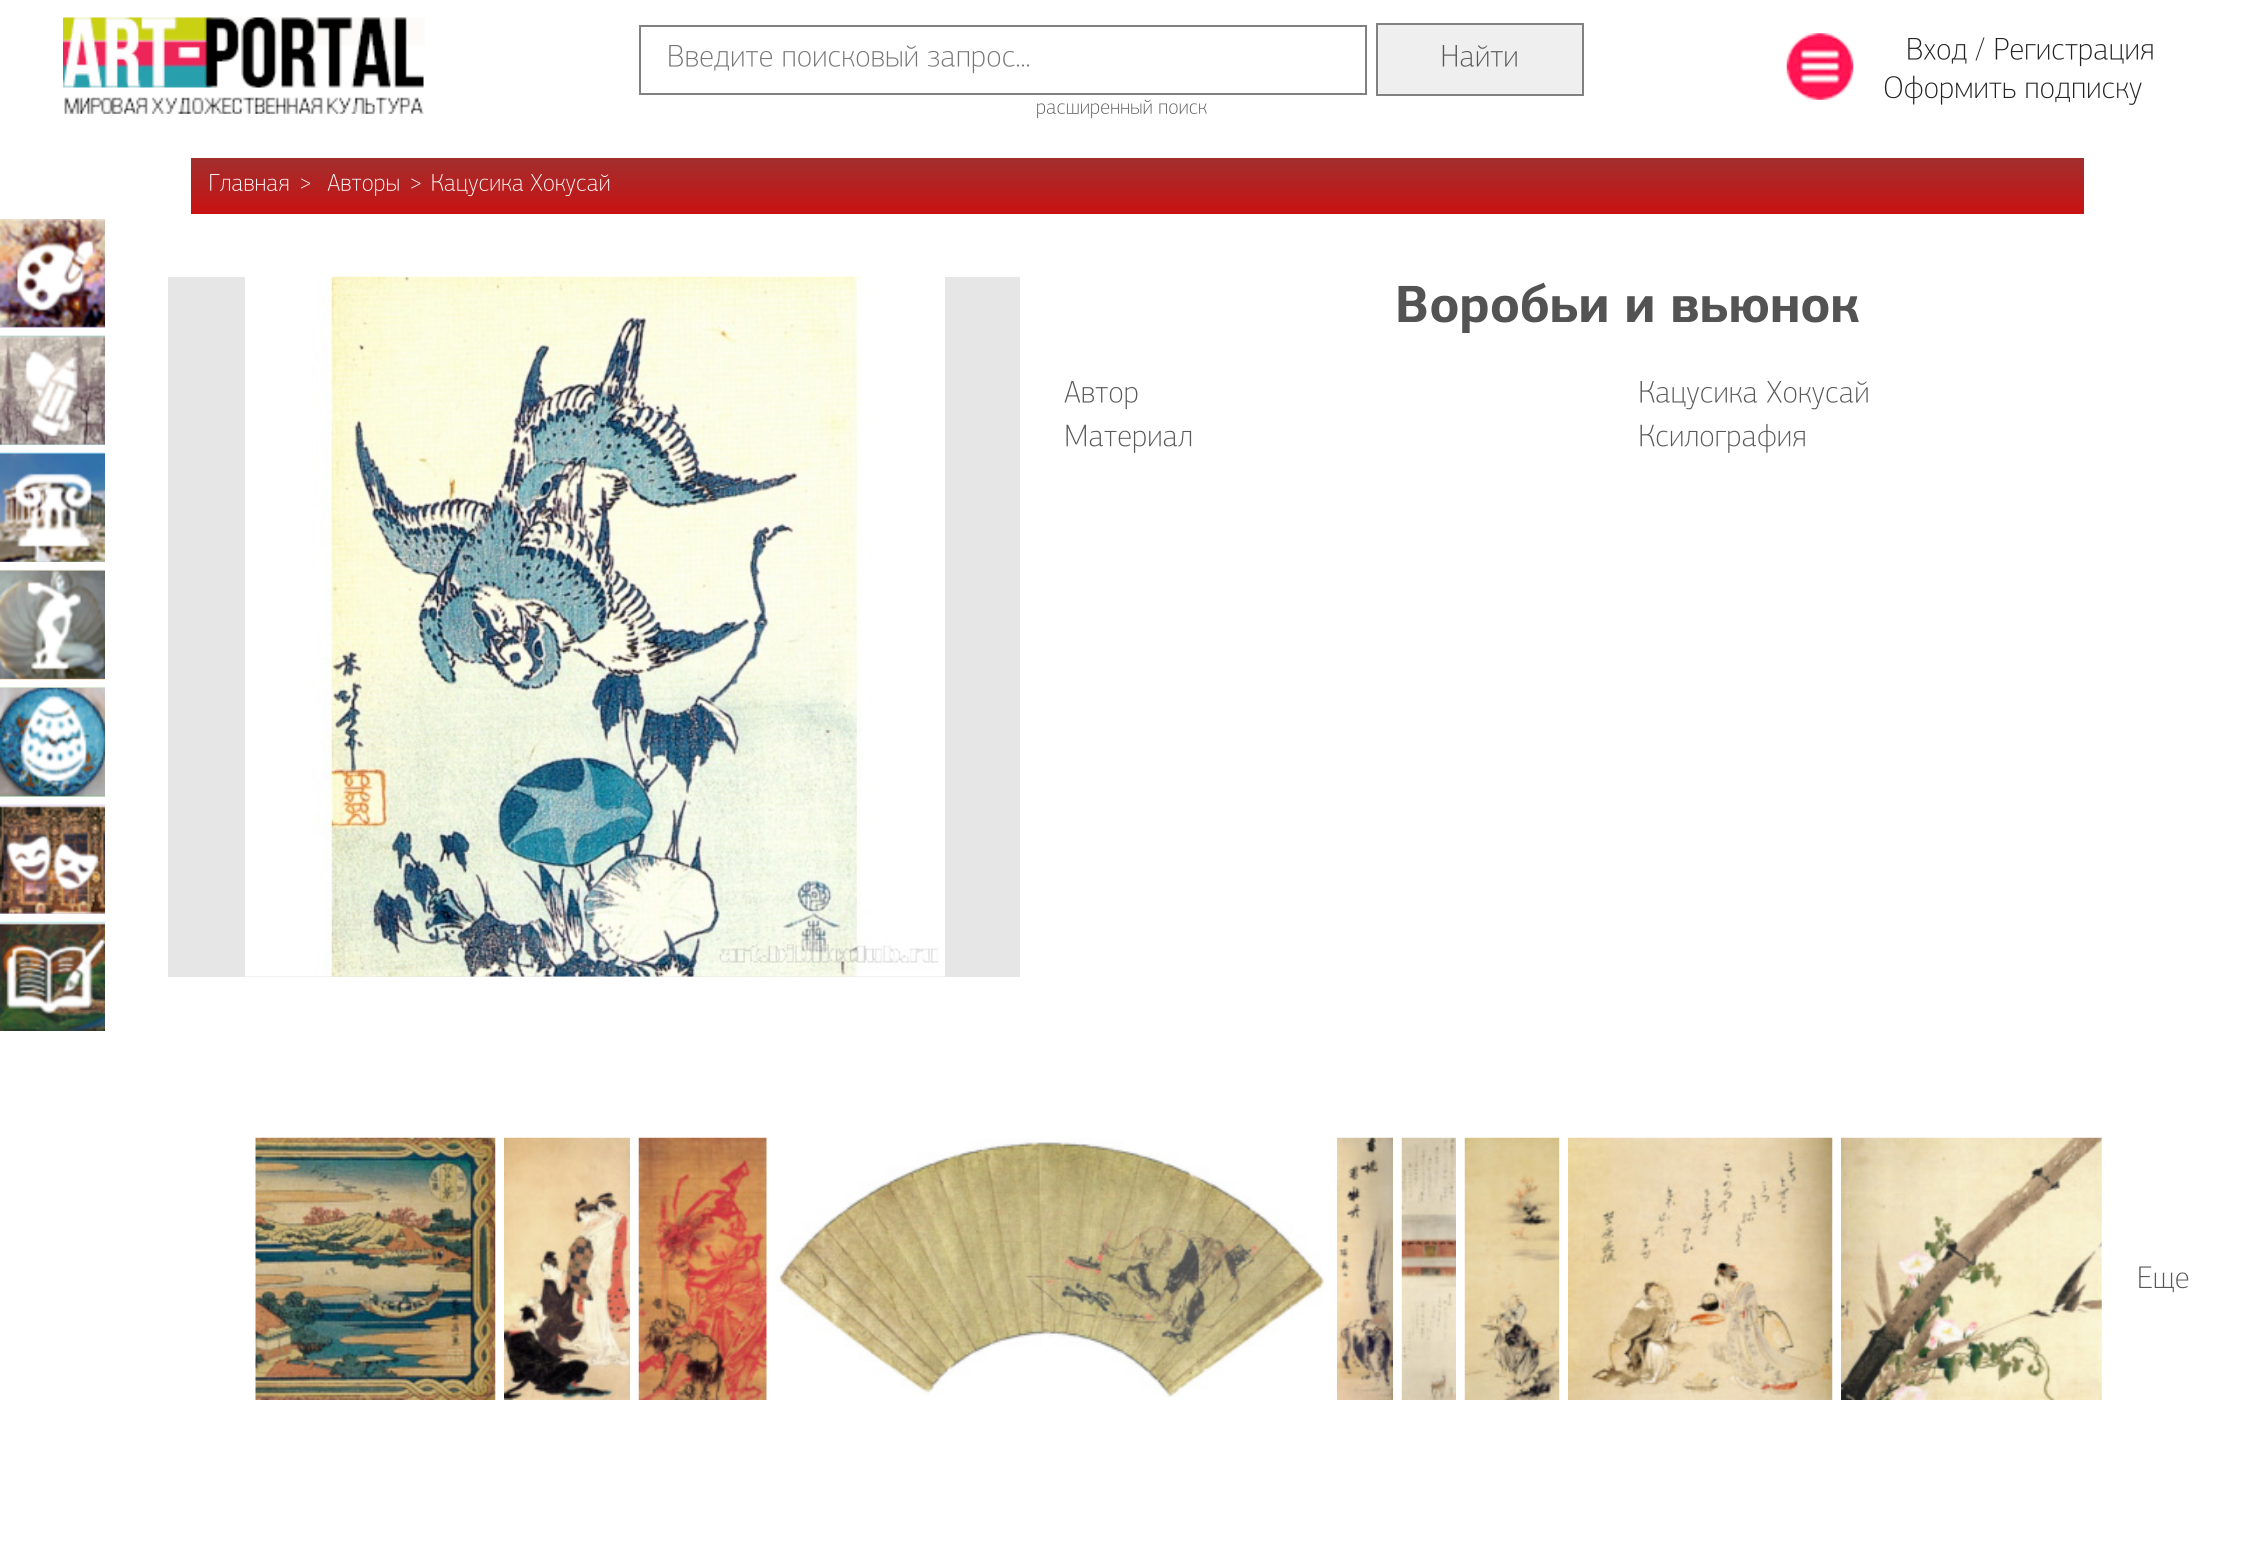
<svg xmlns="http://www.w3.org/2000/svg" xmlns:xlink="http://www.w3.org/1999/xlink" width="2251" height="1568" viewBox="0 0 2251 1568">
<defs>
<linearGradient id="g1" gradientUnits="userSpaceOnUse" x1="1138" y1="157" x2="1138" y2="214"><stop offset="0" stop-color="#a12f2f"/><stop offset="1" stop-color="#c91212"/></linearGradient>
</defs>
<rect width="100%" height="100%" fill="#ffffff"/>
<image xlink:href="image0.png" x="0" y="326" width="105" height="2"/>
<image xlink:href="image1.png" x="0" y="219" width="105" height="109"/>
<image xlink:href="image2.png" x="0" y="335" width="105" height="110"/>
<image xlink:href="image3.png" x="0" y="335" width="105" height="110"/>
<image xlink:href="image4.png" x="0" y="452" width="105" height="110"/>
<image xlink:href="image5.png" x="0" y="452" width="105" height="110"/>
<image xlink:href="image6.png" x="0" y="569" width="105" height="111"/>
<image xlink:href="image7.png" x="0" y="570" width="105" height="110"/>
<image xlink:href="image8.png" x="0" y="687" width="105" height="110"/>
<image xlink:href="image9.png" x="0" y="687" width="105" height="110"/>
<image xlink:href="image10.png" x="0" y="804" width="105" height="110"/>
<image xlink:href="image11.png" x="0" y="805" width="105" height="109"/>
<image xlink:href="image12.png" x="0" y="921" width="105" height="2"/>
<image xlink:href="image13.png" x="0" y="922" width="105" height="109"/>
<image xlink:href="image14.png" x="63" y="17" width="362" height="97"/>
<rect fill="none" stroke="#828180" stroke-width="2" x="640" y="26" width="726" height="68"/>
<image xlink:href="image15.png" x="669" y="45" width="361" height="29"/>
<rect fill="#efefef" stroke="#828180" stroke-width="2" x="1377" y="24" width="206" height="71"/>
<image xlink:href="image16.png" x="1442" y="45" width="75" height="22"/>
<image xlink:href="image17.png" x="1037" y="99" width="170" height="20"/>
<image xlink:href="image18.png" x="1786" y="33" width="68" height="67"/>
<image xlink:href="image19.png" x="1908" y="38" width="59" height="26"/>
<path fill="#222222" d="M1976.5 60.5H1975.5L1983.5 37.5H1984.5Z"/>
<image xlink:href="image20.png" x="1995" y="38" width="158" height="29"/>
<image xlink:href="image21.png" x="1884" y="75" width="258" height="30"/>
<rect fill="url(#g1)" x="191" y="158" width="1893" height="56"/>
<image xlink:href="image22.png" x="210" y="174" width="79" height="17"/>
<image xlink:href="image23.png" x="301" y="178" width="10" height="11"/>
<image xlink:href="image24.png" x="327" y="174" width="72" height="22"/>
<image xlink:href="image25.png" x="411" y="178" width="10" height="11"/>
<image xlink:href="image26.png" x="432" y="174" width="178" height="23"/>
<rect fill="#e6e6e6" x="168" y="277" width="852" height="700"/>
<image xlink:href="image27.png" x="245" y="276" width="700" height="701"/>
<image xlink:href="image28.png" x="1398" y="282" width="461" height="51"/>
<image xlink:href="image29.png" x="1064" y="381" width="74" height="29"/>
<image xlink:href="image30.png" x="1640" y="381" width="228" height="29"/>
<image xlink:href="image31.png" x="1066" y="424" width="126" height="29"/>
<image xlink:href="image32.png" x="1640" y="423" width="165" height="30"/>
<image xlink:href="image33.png" x="255" y="1137" width="241" height="263"/>
<image xlink:href="image34.png" x="504" y="1137" width="126" height="263"/>
<image xlink:href="image35.png" x="638" y="1137" width="129" height="263"/>
<image xlink:href="image36.png" x="775" y="1138" width="553" height="259"/>
<image xlink:href="image37.png" x="1337" y="1137" width="56" height="263"/>
<image xlink:href="image38.png" x="1401" y="1137" width="55" height="263"/>
<image xlink:href="image39.png" x="1464" y="1137" width="96" height="263"/>
<image xlink:href="image40.png" x="1568" y="1137" width="265" height="263"/>
<image xlink:href="image41.png" x="1841" y="1137" width="261" height="263"/>
<image xlink:href="image42.png" x="2139" y="1266" width="50" height="27"/>
</svg>
